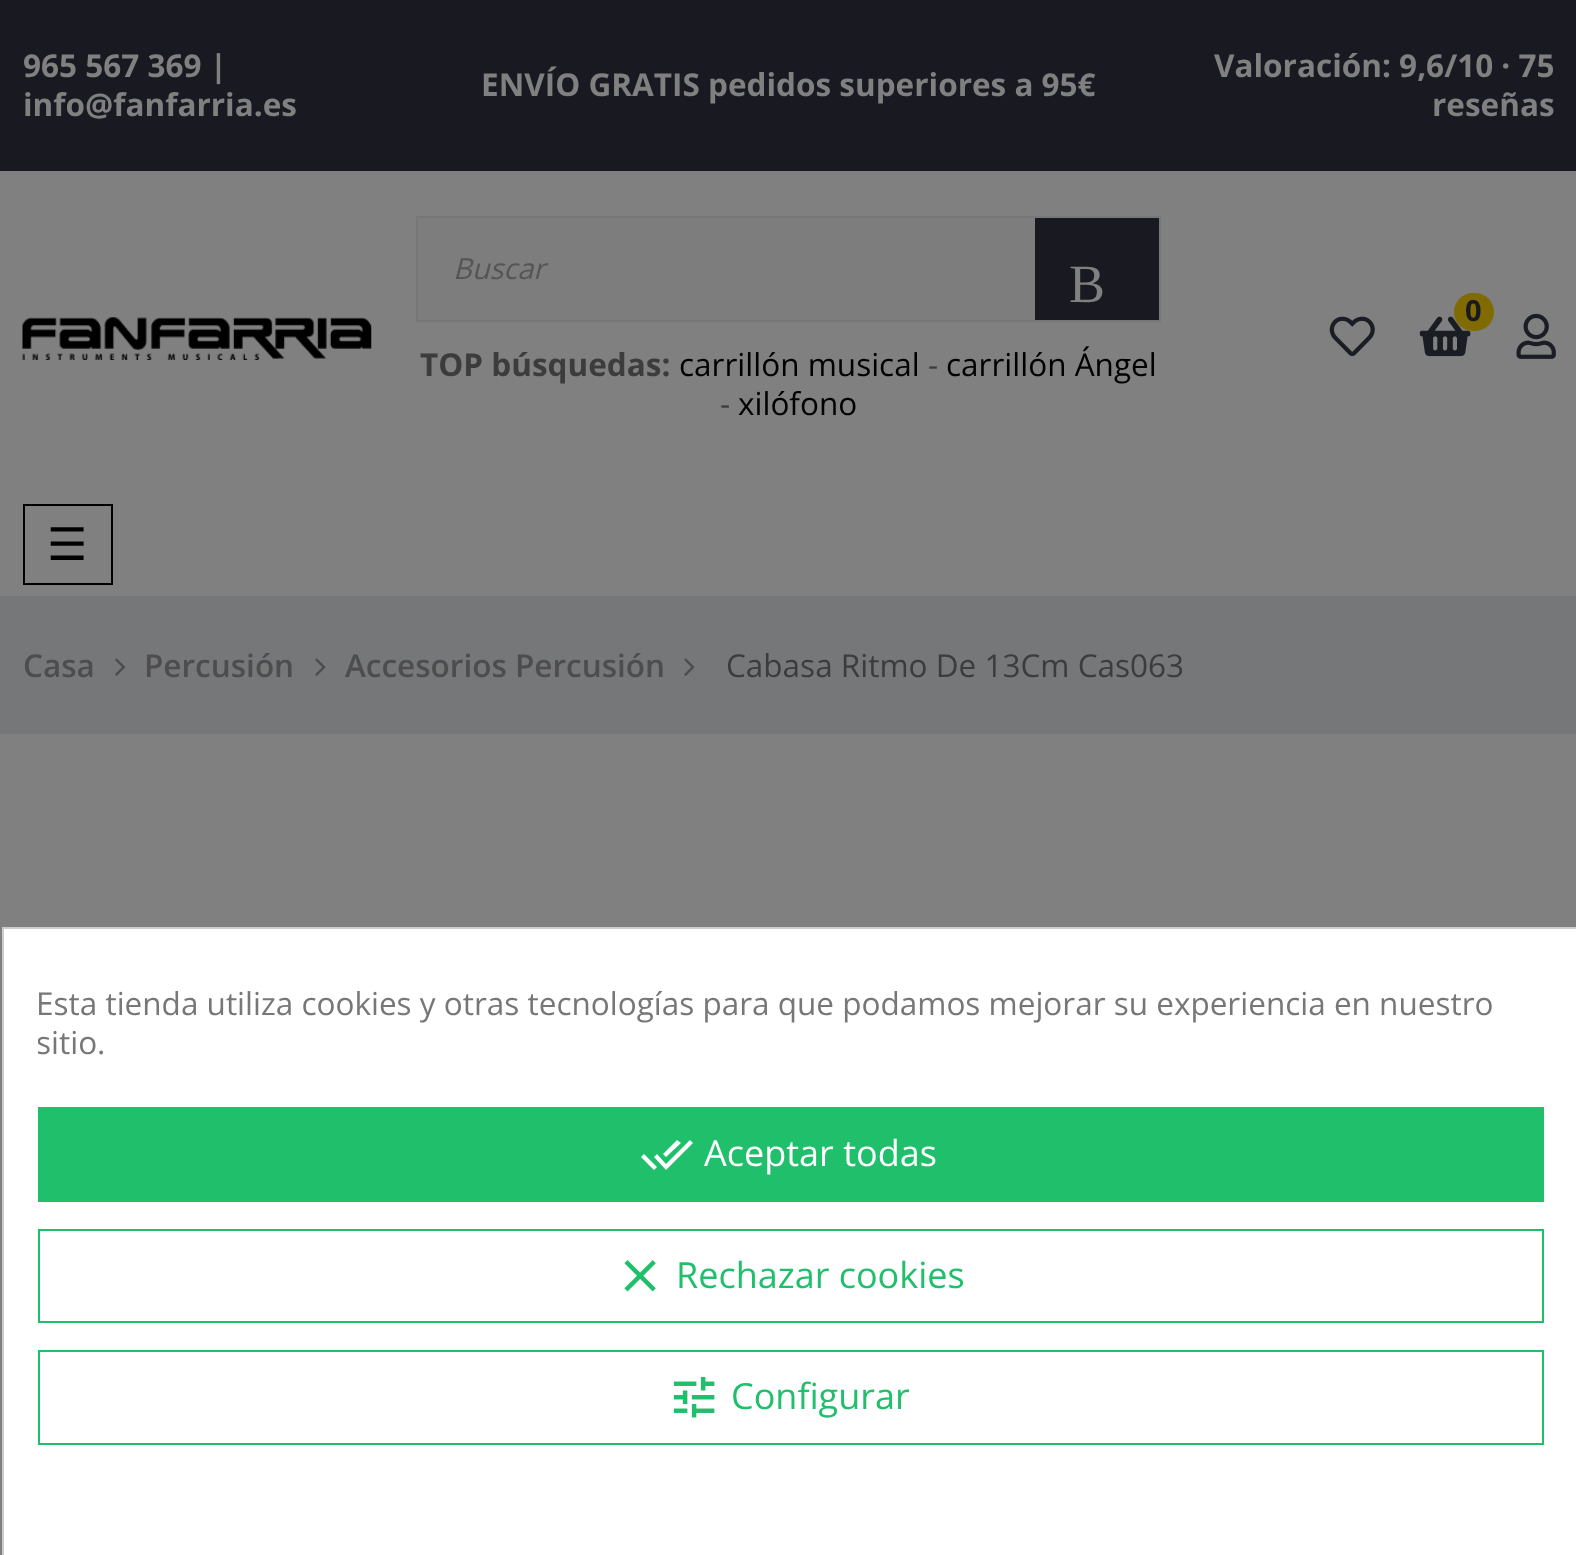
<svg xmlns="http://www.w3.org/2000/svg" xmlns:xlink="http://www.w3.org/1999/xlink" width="1576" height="1555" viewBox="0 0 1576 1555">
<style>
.cls-1{font:bold 31.5px Open Sans;fill:#808080}
.cls-2{font:italic 29px Open Sans;fill:#555555}
.cls-3{font:54px Liberation Serif;fill:#808080}
.cls-4{font:bold 31.5px Open Sans;fill:#3c3c3c}
.cls-5{font:31.5px Open Sans;fill:#000000}
.cls-6{font:31.5px Open Sans;fill:#3c3c3c}
.cls-7{font:bold 29px Open Sans;fill:#181921}
.cls-8{font:45px DejaVu Sans;fill:#000000}
.cls-9{font:600 31.5px Open Sans;fill:#4d4d4d}
.cls-10{font:31.5px Open Sans;fill:#777777}
.cls-11{font:36px Open Sans;fill:#ffffff}
.cls-12{font:36px Open Sans;fill:#20bf6b}
</style>
<defs>
<clipPath id="clip1"><rect x="38" y="983" width="1506" height="79"/></clipPath>
</defs>
<rect width="100%" height="100%" fill="#808080"/>
<rect fill="#181921" x="0" y="0" width="1576" height="171"/>
<rect fill="none" stroke="#767779" stroke-width="2" x="417" y="217" width="743" height="104"/>
<rect fill="#7d7d7d" x="419" y="218" width="616" height="102"/>
<rect fill="#181921" x="1035" y="218" width="124" height="102"/>
<image xlink:href="image0.png" x="1419" y="316" width="52" height="41"/>
<rect fill="#806a02" x="1454" y="293" width="40" height="38" rx="19"/>
<image xlink:href="image1.png" x="1329" y="316" width="46" height="41"/>
<image xlink:href="image2.png" x="1516" y="313" width="40" height="46"/>
<image xlink:href="image3.png" x="22" y="317" width="350" height="43"/>
<rect fill="none" stroke="#000000" stroke-width="2" x="24" y="505" width="88" height="79"/>
<rect fill="#767779" x="0" y="596" width="1576" height="138"/>
<image xlink:href="image4.png" x="115" y="658" width="11" height="18"/>
<image xlink:href="image5.png" x="315" y="658" width="11" height="18"/>
<image xlink:href="image5.png" x="684" y="658" width="11" height="18"/>
<rect fill="#ffffff" stroke="#cccccc" stroke-width="2" x="3" y="928" width="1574" height="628"/>
<rect fill="#20bf6b" x="38" y="1107" width="1506" height="95"/>
<path fill="#ffffff" d="M641 1157L644 1154L657 1167L654 1170ZM690 1140L693 1143L666 1170L654 1157L657 1154L666 1164ZM681 1143L666 1157L663 1154L677 1140Z"/>
<rect fill="none" stroke="#20bf6b" stroke-width="2" x="39" y="1230" width="1504" height="92"/>
<image xlink:href="image6.png" x="624" y="1260" width="32" height="32"/>
<rect fill="none" stroke="#20bf6b" stroke-width="2" x="39" y="1351" width="1504" height="93"/>
<image xlink:href="image7.png" x="673" y="1377" width="42" height="41"/>
<text class="cls-1"><tspan x="23" y="77">965 567 369 |</tspan><tspan x="23" y="116">info@fanfarria.es</tspan></text>
<text class="cls-1" x="481" y="96">ENVÍO GRATIS pedidos superiores a 95€</text>
<text class="cls-1" x="1214" y="77">Valoración: 9,6/10 · 75</text>
<text class="cls-1" x="1432" y="116">reseñas</text>
<text class="cls-2" x="453" y="279">Buscar</text>
<text class="cls-3" x="1069" y="302">B</text>
<text class="cls-4" x="420" y="376">TOP búsquedas:</text>
<text class="cls-5" x="679" y="376">carrillón musical</text>
<text class="cls-6" x="928" y="376">-</text>
<text class="cls-5" x="946" y="376">carrillón Ángel</text>
<text class="cls-6" x="720" y="415">-</text>
<text class="cls-5" x="738" y="415">xilófono</text>
<text class="cls-7" x="1465" y="321">0</text>
<text class="cls-8" x="47" y="560">☰</text>
<text class="cls-9" x="23" y="677">Casa</text>
<text class="cls-9" x="144" y="677">Percusión</text>
<text class="cls-9" x="345" y="677">Accesorios Percusión</text>
<text class="cls-6" x="726" y="677">Cabasa Ritmo De 13Cm Cas063</text>
<text class="cls-10" x="36" y="1015">Esta tienda utiliza cookies y otras tecnologías para que podamos mejorar su experiencia en nuestro</text>
<g clip-path="url(#clip1)">
<text class="cls-10" x="36" y="1054">sitio.</text>
</g>
<text class="cls-11" x="704" y="1166">Aceptar todas</text>
<text class="cls-12" x="676" y="1288">Rechazar cookies</text>
<text class="cls-12" x="731" y="1409">Configurar</text>
</svg>
